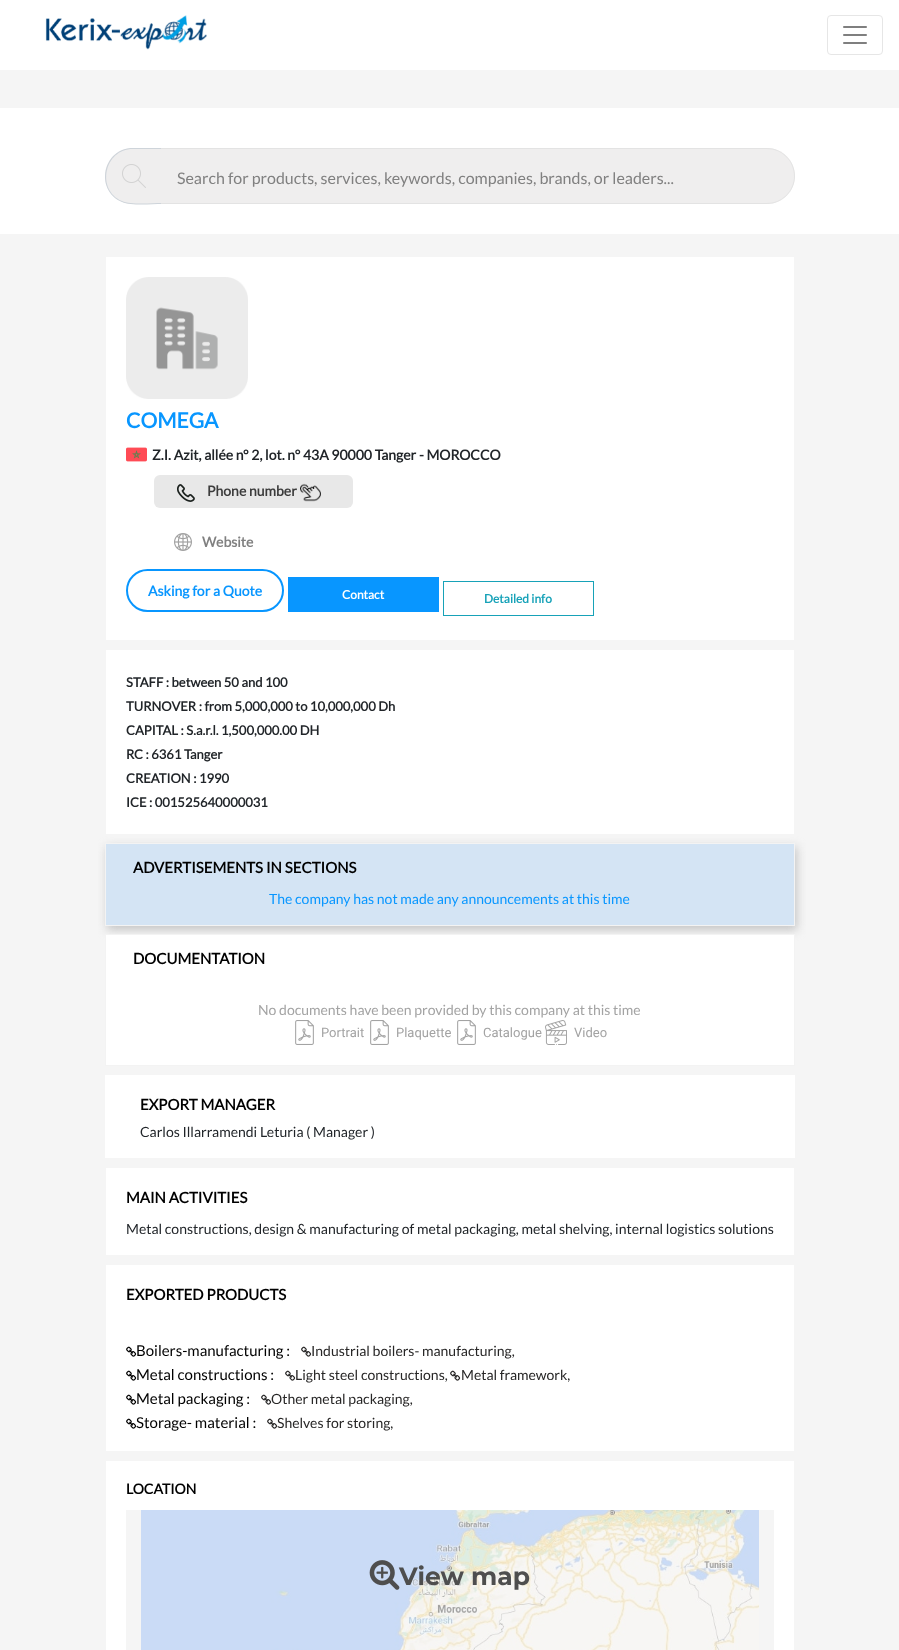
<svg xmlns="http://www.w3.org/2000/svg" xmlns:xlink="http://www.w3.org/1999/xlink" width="899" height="1650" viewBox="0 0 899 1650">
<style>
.cls-1{font:16px Lato;fill:#808080}
.cls-2{font:bold 21px Lato;fill:#0896ff}
.cls-3{font:bold 14px Lato;fill:#212529}
.cls-4{font:bold 14px Lato;fill:#3c3c3c}
.cls-5{font:bold 14px Lato;fill:#808080}
.cls-6{font:bold 14px Lato;fill:#0896ff}
.cls-7{font:bold 12px Lato;fill:#ffffff}
.cls-8{font:bold 12px Lato;fill:#17a2b8}
.cls-9{font:bold 13px Lato;fill:#212529}
.cls-10{font:bold 15px Lato;fill:#000000}
.cls-11{font:14px Lato;fill:#0896ff}
.cls-12{font:14px Lato;fill:#a3a3a3}
.cls-13{font:13px Roboto;fill:#a3a3a3}
.cls-14{font:14px Lato;fill:#212529}
.cls-15{font:15px Lato;fill:#000000}
.cls-16{font:14px Lato;fill:#272626}
.cls-17{font:bold 14px Lato;fill:#000000}
.cls-18{font:100 25px Montserrat;fill:#4e4e4e}
</style>
<rect width="100%" height="100%" fill="#f5f5f5"/>
<rect fill="#ffffff" x="0" y="0" width="899" height="70"/>
<image xlink:href="image0.png" x="45" y="15" width="162" height="35"/>
<rect fill="none" stroke="#e6e6e6" x="827.5" y="15.5" width="55" height="39" rx="3.5"/>
<image xlink:href="image1.png" x="843" y="26" width="24" height="18"/>
<rect fill="#ffffff" x="0" y="108" width="899" height="126"/>
<path fill="#efeeee" d="M133 148H162V204H133C117.5 204 105 191.5 105 176C105 160.5 117.5 148 133 148Z"/>
<path fill="#ced4da" fill-rule="evenodd" d="M133 148H162V204C152 204 131 206 122 202C94 190 103 148 133 148ZM133 149H162V203C152 203 131 205 122 201C96 190 104 149 133 149Z"/>
<image xlink:href="image2.png" x="122" y="164" width="24" height="24"/>
<path fill="#efeeee" d="M161 148H767C782.5 148 795 160.5 795 176C795 191.5 782.5 204 767 204H161Z"/>
<path fill="#e3e3e3" fill-rule="evenodd" d="M161 148H767C782 148 795 161 795 176C795 191 782 204 767 204H161ZM161 149H767C782 149 794 161 794 176C794 191 782 203 767 203H161Z"/>
<rect fill="#ffffff" x="106" y="257" width="688" height="383"/>
<image xlink:href="image3.png" x="126" y="277" width="122" height="122"/>
<image xlink:href="image4.png" x="126" y="447" width="21" height="15"/>
<rect fill="#e8e8e8" x="154" y="475" width="199" height="33" rx="6"/>
<image xlink:href="image5.png" x="177" y="484" width="18" height="18"/>
<image xlink:href="image6.png" x="300" y="483" width="21" height="19"/>
<image xlink:href="image7.png" x="174" y="533" width="18" height="18"/>
<rect fill="none" stroke="#0896ff" stroke-width="2" x="127" y="570" width="156" height="41" rx="20.5"/>
<rect fill="#0896ff" x="288" y="577" width="151" height="35"/>
<rect fill="none" stroke="#17a2b8" x="443.5" y="581.5" width="150" height="34"/>
<rect fill="#ffffff" x="106" y="650" width="688" height="184"/>
<rect fill="#c5c5c5" filter="blur(5px)" x="107" y="847" width="690" height="83"/>
<rect fill="#d4e4f4" stroke="#f3f3f3" x="105.5" y="843.5" width="689" height="82"/>
<rect fill="#ffffff" stroke="#f3f3f3" x="105.5" y="934.5" width="689" height="131"/>
<image xlink:href="image8.png" x="295" y="1020" width="19" height="25"/>
<image xlink:href="image8.png" x="370" y="1020" width="19" height="25"/>
<image xlink:href="image8.png" x="457" y="1020" width="19" height="25"/>
<image xlink:href="image9.png" x="545" y="1020" width="22" height="25"/>
<rect fill="#ffffff" x="105" y="1075" width="690" height="83"/>
<rect fill="#ffffff" x="106" y="1168" width="688" height="87"/>
<rect fill="#ffffff" x="106" y="1265" width="688" height="186"/>
<image xlink:href="image10.png" x="126" y="1346" width="11" height="11"/>
<image xlink:href="image11.png" x="301" y="1346" width="11" height="11"/>
<image xlink:href="image10.png" x="126" y="1370" width="11" height="11"/>
<image xlink:href="image11.png" x="285" y="1370" width="11" height="11"/>
<image xlink:href="image11.png" x="450" y="1370" width="11" height="11"/>
<image xlink:href="image10.png" x="126" y="1394" width="11" height="11"/>
<image xlink:href="image11.png" x="261" y="1394" width="11" height="11"/>
<image xlink:href="image10.png" x="126" y="1418" width="11" height="11"/>
<image xlink:href="image11.png" x="267" y="1418" width="11" height="11"/>
<rect fill="#ffffff" x="106" y="1461" width="688" height="189"/>
<rect fill="#f5f5f5" x="126" y="1510" width="648" height="140"/>
<image xlink:href="image12.png" x="141" y="1510" width="618" height="140"/>
<image xlink:href="image13.png" x="369" y="1560" width="31" height="30"/>
<text class="cls-1" x="177" y="184">Search for products, services, keywords, companies, brands, or leaders...</text>
<text class="cls-2" x="126" y="428">COMEGA</text>
<text class="cls-3" x="152" y="460">Z.I. Azit, allée n° 2, lot. n° 43A 90000 Tanger - MOROCCO</text>
<text class="cls-4" x="207" y="496">Phone number</text>
<text class="cls-5" x="202" y="547">Website</text>
<text class="cls-6" x="148" y="596">Asking for a Quote</text>
<text class="cls-7" x="342" y="599">Contact</text>
<text class="cls-8" x="484" y="603">Detailed info</text>
<text class="cls-9"><tspan x="126" y="687">STAFF : between 50 and 100</tspan><tspan x="126" y="711">TURNOVER : from 5,000,000 to 10,000,000 Dh</tspan><tspan x="126" y="735">CAPITAL : S.a.r.l. 1,500,000.00 DH</tspan><tspan x="126" y="759">RC : 6361 Tanger</tspan><tspan x="126" y="783">CREATION : 1990</tspan><tspan x="126" y="807">ICE : 001525640000031</tspan></text>
<text class="cls-10" x="133" y="873">ADVERTISEMENTS IN SECTIONS</text>
<text class="cls-11" x="269" y="904">The company has not made any announcements at this time</text>
<text class="cls-10" x="133" y="964">DOCUMENTATION</text>
<text class="cls-12" x="258" y="1015">No documents have been provided by this company at this time</text>
<text class="cls-13" x="321" y="1037">Portrait</text>
<text class="cls-13" x="396" y="1037">Plaquette</text>
<text class="cls-13" x="483" y="1037">Catalogue</text>
<text class="cls-13" x="574" y="1037">Video</text>
<text class="cls-10" x="140" y="1110">EXPORT MANAGER</text>
<text class="cls-14" x="140" y="1137">Carlos Illarramendi Leturia ( Manager )</text>
<text class="cls-10" x="126" y="1203">MAIN ACTIVITIES</text>
<text class="cls-14" x="126" y="1234">Metal constructions, design &amp; manufacturing of metal packaging, metal shelving, internal logistics solutions</text>
<text class="cls-10" x="126" y="1300">EXPORTED PRODUCTS</text>
<text class="cls-15" x="136" y="1356">Boilers-manufacturing :</text>
<text class="cls-16" x="311" y="1356">Industrial boilers- manufacturing,</text>
<text class="cls-15" x="136" y="1380">Metal constructions :</text>
<text class="cls-16" x="295" y="1380">Light steel constructions,</text>
<text class="cls-16" x="461" y="1380">Metal framework,</text>
<text class="cls-15" x="136" y="1404">Metal packaging :</text>
<text class="cls-16" x="271" y="1404">Other metal packaging,</text>
<text class="cls-15" x="136" y="1428">Storage- material :</text>
<text class="cls-16" x="277" y="1428">Shelves for storing,</text>
<text class="cls-17" x="126" y="1494">LOCATION</text>
<text class="cls-18" x="399" y="1585">View map</text>
</svg>
